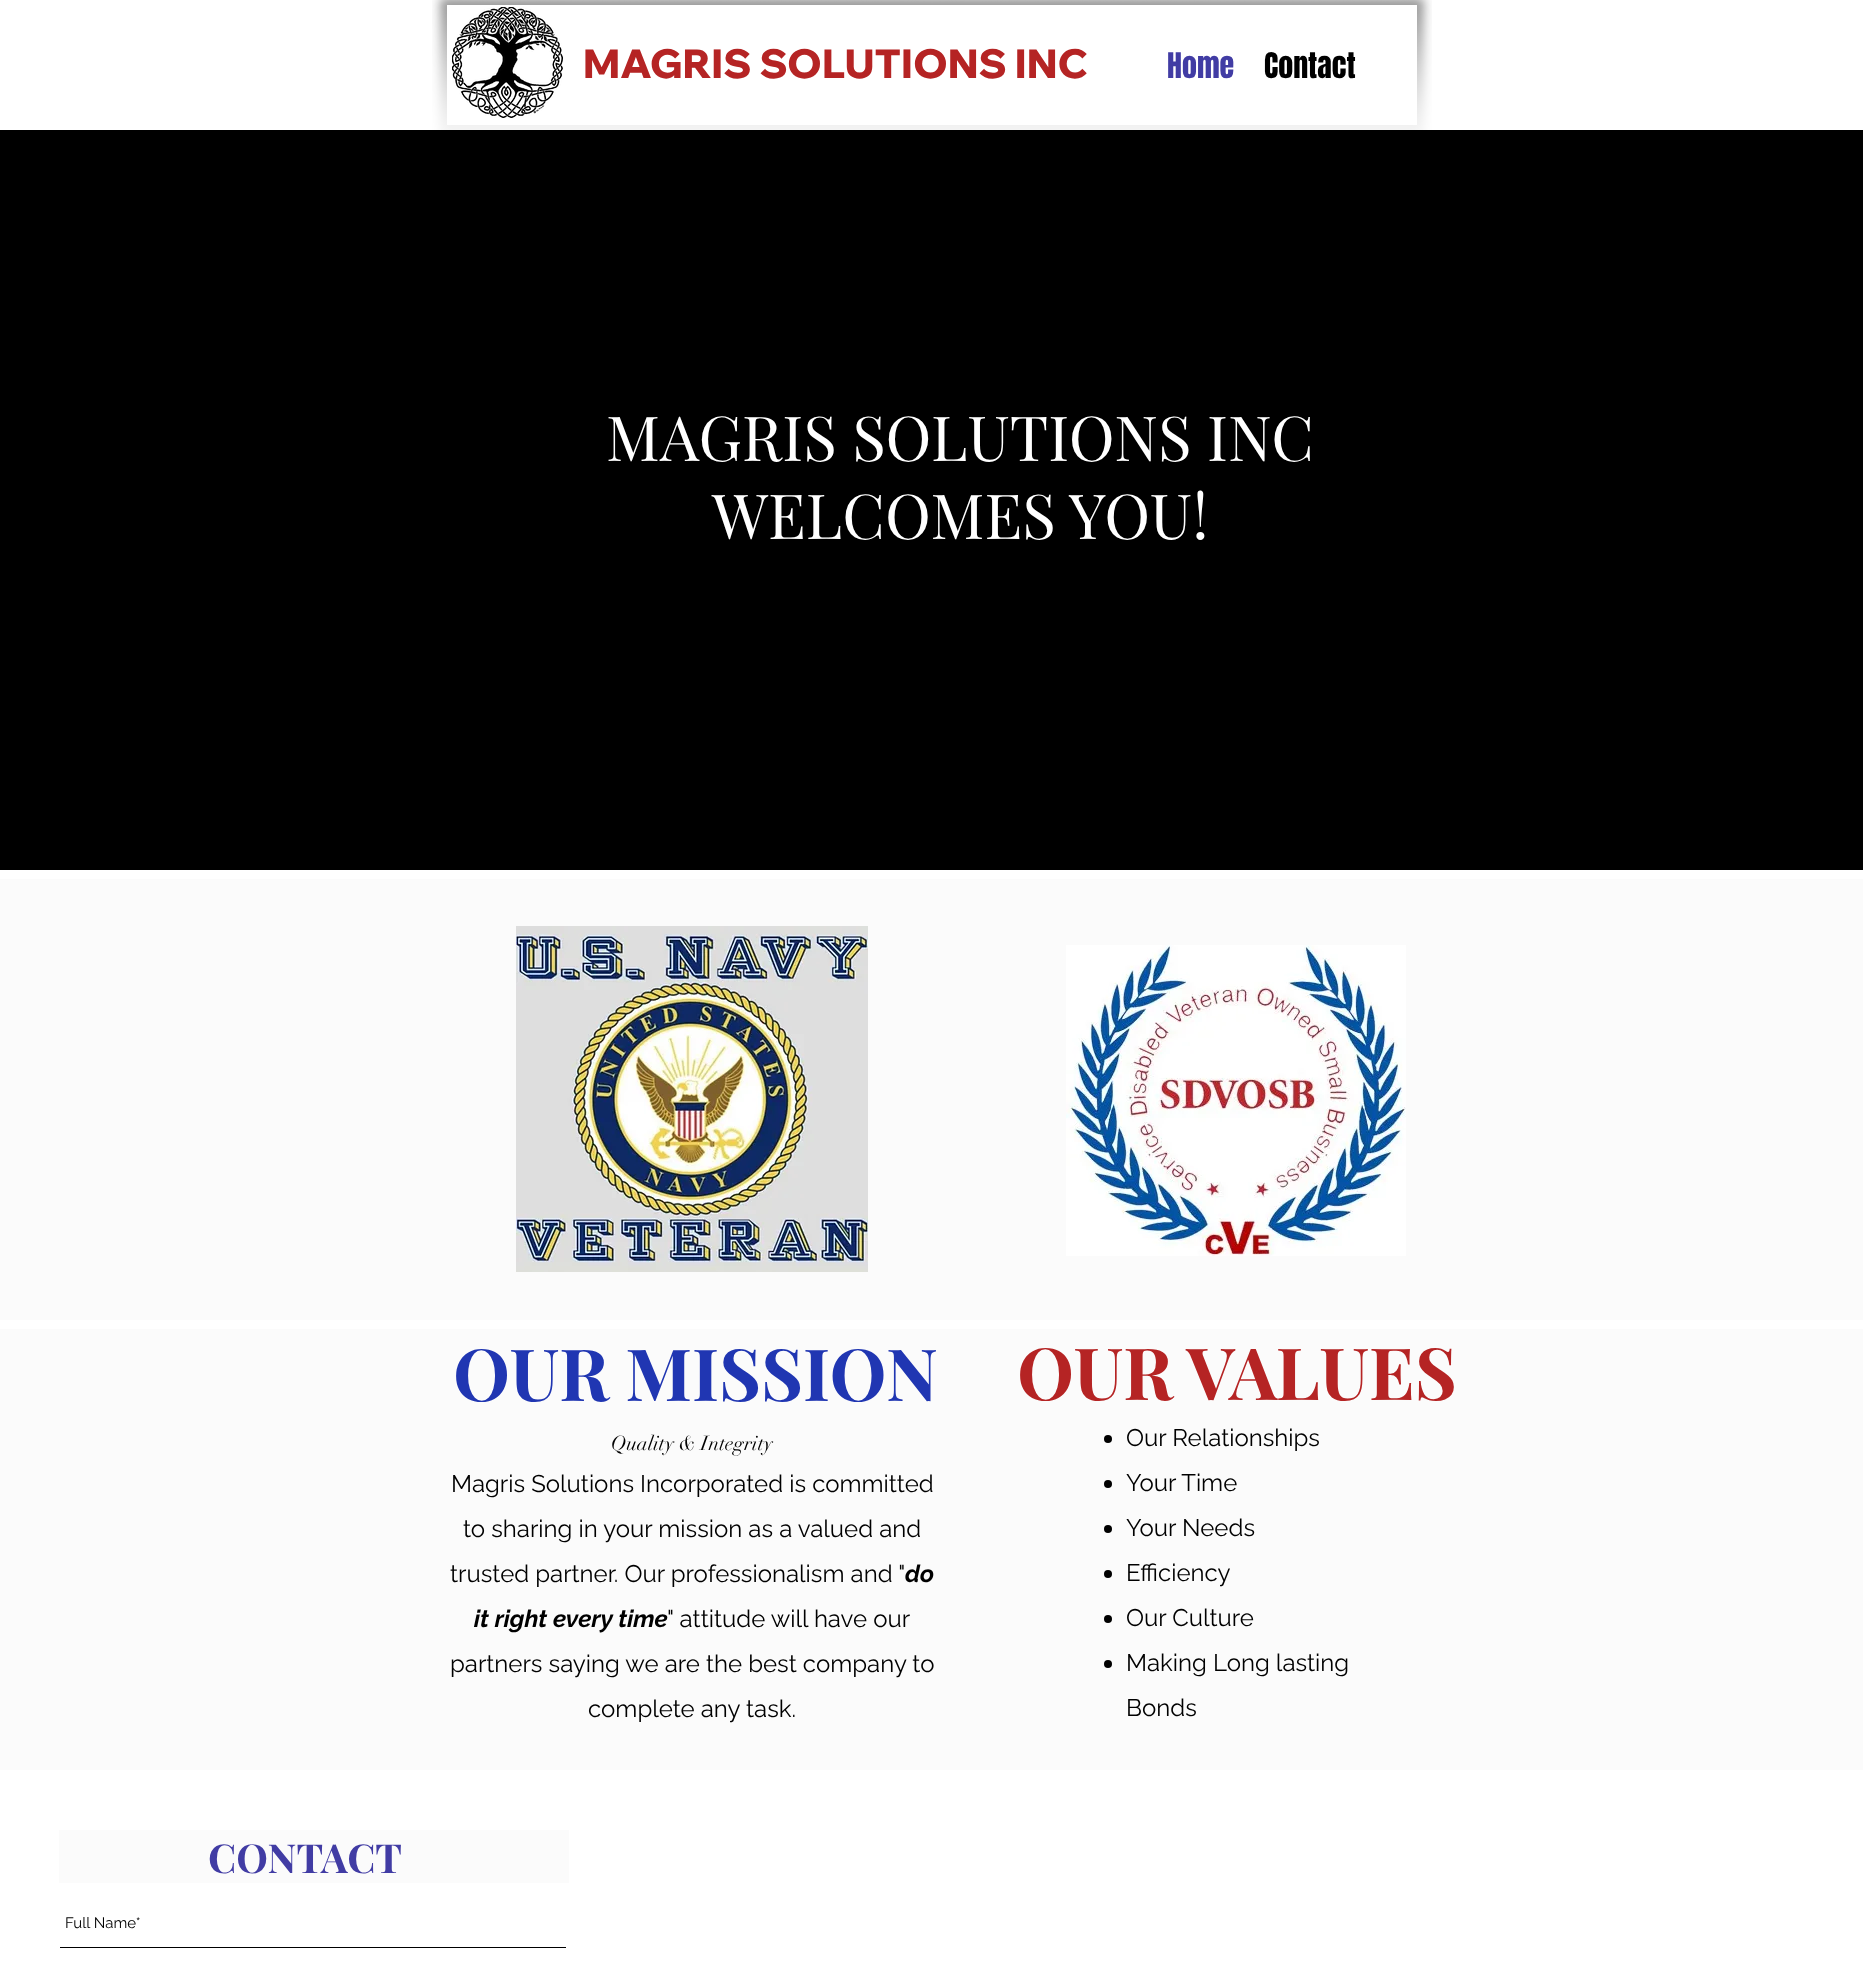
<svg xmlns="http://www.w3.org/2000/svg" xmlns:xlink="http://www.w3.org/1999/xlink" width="1863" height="1976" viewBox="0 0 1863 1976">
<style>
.cls-1{font:800 40px Wix Madefor Display;fill:#b52424}
.cls-2{font:30px Anton;fill:#413ca4}
.cls-3{font:30px Anton;fill:#000000}
.cls-4{font:62px Playfair Display;fill:#ffffff}
.cls-5{font:bold 72px Playfair Display;fill:#2036b2}
.cls-6{font:bold 72px Playfair Display;fill:#b52424}
.cls-7{font:20px didot;fill:#000000}
.cls-8{font:24px Raleway;fill:#000000}
.cls-9{font:italic bold 24px Raleway;fill:#000000}
.cls-10{font:bold 40px Playfair Display;fill:#413ca4}
.cls-11{font:15px Raleway;fill:#000000}
</style>
<rect width="100%" height="100%" fill="#ffffff"/>
<image xlink:href="image0.png" x="432" y="0" width="45" height="130"/>
<image xlink:href="image1.png" x="477" y="0" width="910" height="130"/>
<image xlink:href="image2.png" x="1387" y="0" width="45" height="130"/>
<rect fill="#ffffff" x="447" y="5" width="970" height="120"/>
<image xlink:href="image3.png" x="452" y="7" width="111" height="111"/>
<rect fill="#000000" x="0" y="130" width="1863" height="740"/>
<rect fill="#fbfbfb" x="0" y="879" width="1863" height="441"/>
<image xlink:href="image4.png" x="516" y="926" width="352" height="346"/>
<image xlink:href="image5.png" x="1066" y="945" width="340" height="311"/>
<rect fill="#fbfbfb" x="0" y="1329" width="1863" height="441"/>
<circle fill="#000000" cx="1108" cy="1439" r="4"/>
<circle fill="#000000" cx="1108" cy="1484" r="4"/>
<circle fill="#000000" cx="1108" cy="1529" r="4"/>
<circle fill="#000000" cx="1108" cy="1574" r="4"/>
<circle fill="#000000" cx="1108" cy="1619" r="4"/>
<circle fill="#000000" cx="1108" cy="1664" r="4"/>
<rect fill="#fbfbfb" x="59" y="1830" width="510" height="53"/>
<rect fill="#000000" x="60" y="1947" width="506" height="1"/>
<text class="cls-1" x="583" y="78">MAGRIS SOLUTIONS INC</text>
<text class="cls-2" x="1167" y="78">Home</text>
<text class="cls-3" x="1264" y="78">Contact</text>
<text class="cls-4" x="606" y="461">MAGRIS SOLUTIONS INC</text>
<text class="cls-4" x="712" y="539">WELCOMES YOU!</text>
<text class="cls-5" x="453" y="1401">OUR MISSION</text>
<text class="cls-6" x="1017" y="1400">OUR VALUES</text>
<text class="cls-7" x="611" y="1450">Quality &amp; Integrity</text>
<text class="cls-8"><tspan x="1126" y="1446">Our Relationships</tspan><tspan x="1126" y="1491">Your Time</tspan><tspan x="1126" y="1536">Your Needs</tspan><tspan x="1126" y="1581">Efficiency</tspan><tspan x="1126" y="1626">Our Culture</tspan><tspan x="1126" y="1671">Making Long lasting</tspan><tspan x="1126" y="1716">Bonds</tspan></text>
<text class="cls-8" x="451" y="1492">Magris Solutions Incorporated is committed</text>
<text class="cls-8" x="463" y="1537">to sharing in your mission as a valued and</text>
<text class="cls-8" x="450" y="1582">trusted partner. Our professionalism and "</text>
<text class="cls-9" x="905" y="1582">do</text>
<text class="cls-9" x="474" y="1627">it right every time</text>
<text class="cls-8" x="667" y="1627">" attitude will have our</text>
<text class="cls-8" x="450" y="1672">partners saying we are the best company to</text>
<text class="cls-8" x="588" y="1717">complete any task.</text>
<text class="cls-10" x="208" y="1873">CONTACT</text>
<text class="cls-11" x="65" y="1928">Full Name*</text>
</svg>
